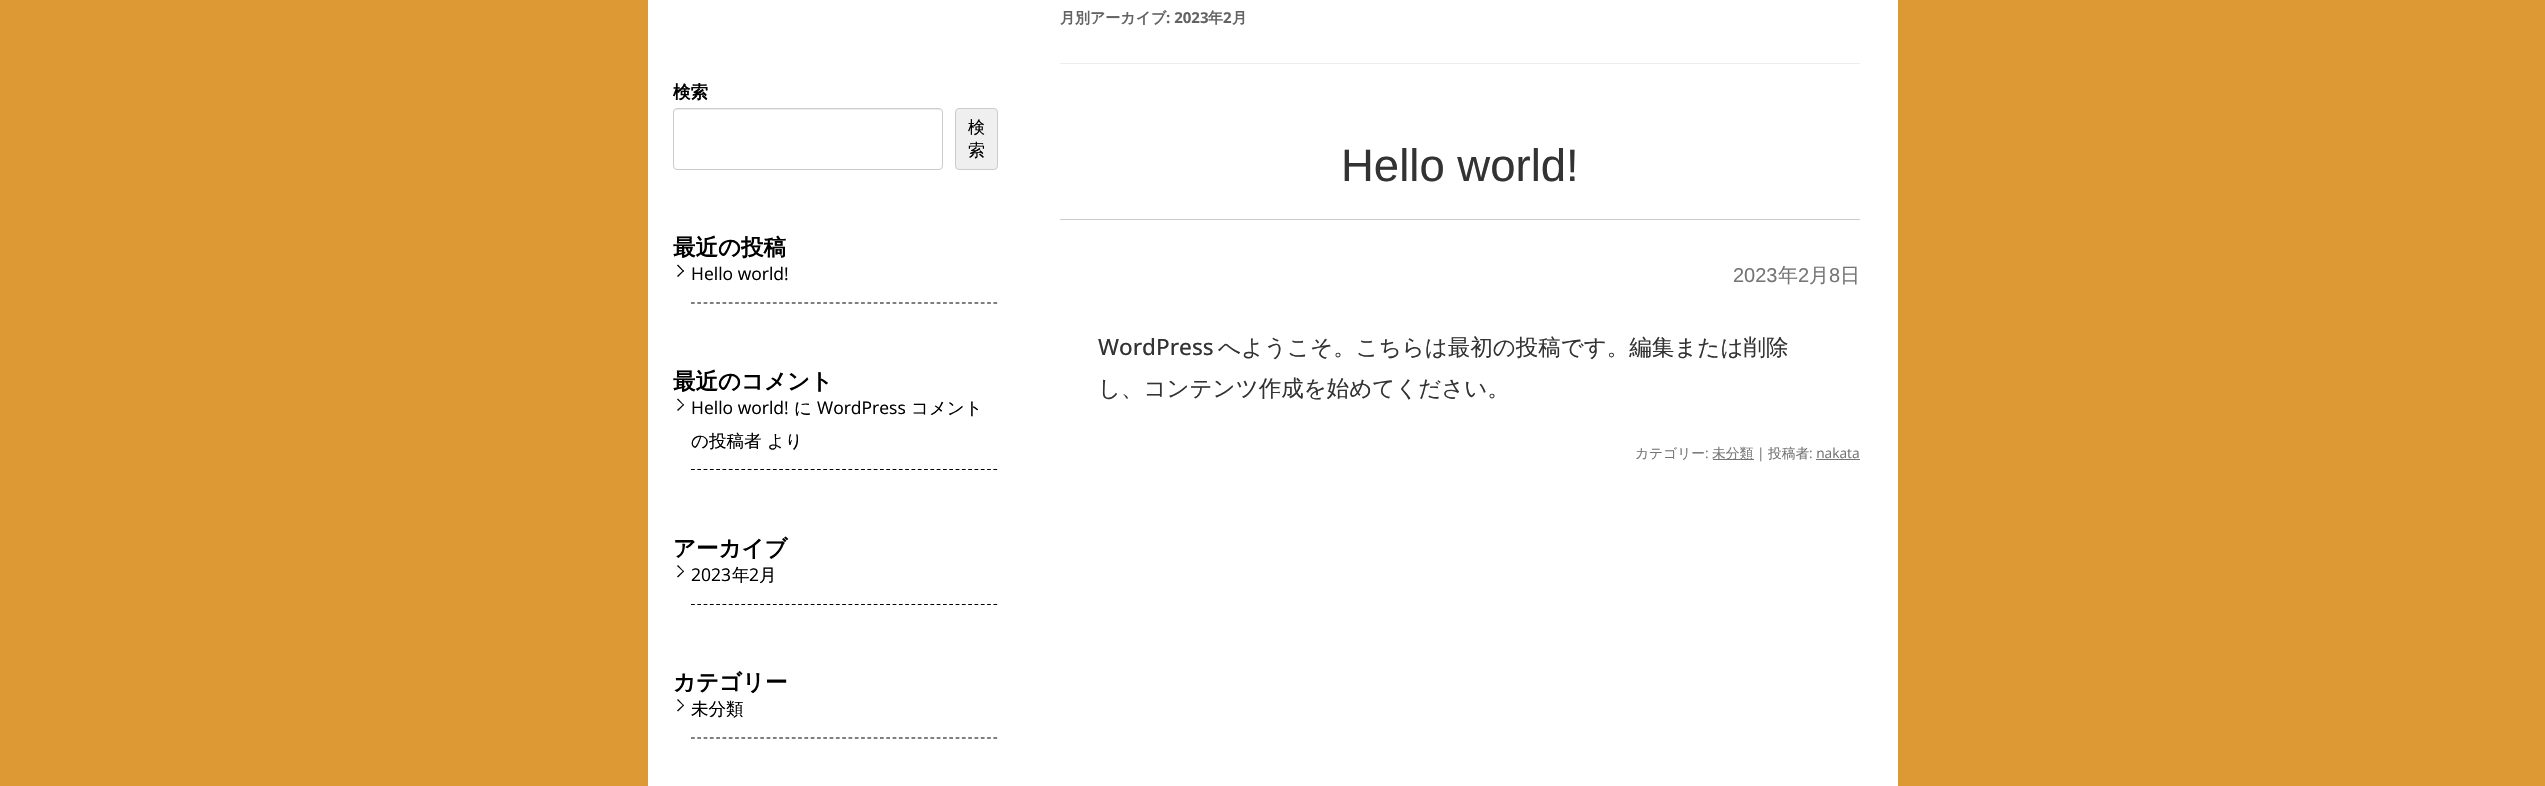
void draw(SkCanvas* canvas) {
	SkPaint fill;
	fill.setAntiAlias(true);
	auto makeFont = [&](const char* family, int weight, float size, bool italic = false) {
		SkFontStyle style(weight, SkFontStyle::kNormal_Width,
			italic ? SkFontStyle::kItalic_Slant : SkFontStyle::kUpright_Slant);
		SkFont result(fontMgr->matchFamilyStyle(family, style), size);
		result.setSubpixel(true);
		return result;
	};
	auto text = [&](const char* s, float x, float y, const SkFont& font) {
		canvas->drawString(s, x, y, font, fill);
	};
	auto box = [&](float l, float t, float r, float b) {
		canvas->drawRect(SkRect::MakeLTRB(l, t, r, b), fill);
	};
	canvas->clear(0xFFDD9933);
	fill.setColor(0xFFFFFFFF);
	box(648, 0, 1898, 786);
	fill.setColor(0xFFECECEC);
	canvas->drawPath(SkPathBuilder().moveTo(676, 110).lineTo(939, 110).cubicTo(940, 110, 941, 111, 941, 112).cubicTo(941, 110, 940, 109, 938, 109).lineTo(676, 109).cubicTo(675, 109, 674, 110, 674, 112).cubicTo(674, 111, 675, 110, 676, 110).close().detach(), fill);
	fill.setStyle(SkPaint::kStroke_Style);
	fill.setStrokeWidth(1);
	fill.setColor(0xFFCCCCCC);
	canvas->drawRoundRect(SkRect::MakeLTRB(673.5f, 108.5f, 942.5f, 169.5f), 3.5f, 3.5f, fill);
	fill.setStyle(SkPaint::kFill_Style);
	fill.setColor(0xFFEFEFEF);
	canvas->drawRoundRect(SkRect::MakeLTRB(955.5f, 108.5f, 997.5f, 169.5f), 3.5f, 3.5f, fill);
	fill.setStyle(SkPaint::kStroke_Style);
	fill.setColor(0xFFCCCCCC);
	canvas->drawRoundRect(SkRect::MakeLTRB(955.5f, 108.5f, 997.5f, 169.5f), 3.5f, 3.5f, fill);
	fill.setStrokeWidth(1.2f);
	fill.setColor(0xFF000000);
	fill.setPathEffect(SkDashPathEffect::Make({{3.75f, 2.55f}}, 0));
	canvas->drawPath(SkPathBuilder().moveTo(691, 303).lineTo(997.5f, 303).detach(), fill);
	fill.setPathEffect(nullptr);
	fill.setStyle(SkPaint::kFill_Style);
	canvas->drawPath(SkPathBuilder().moveTo(677, 265.5f).lineTo(678, 264.5f).lineTo(684, 271).lineTo(683.5f, 272).close().detach(), fill);
	canvas->drawPath(SkPathBuilder().moveTo(677, 276).lineTo(683.5f, 270).lineTo(684, 271).lineTo(678, 277).close().detach(), fill);
	fill.setStyle(SkPaint::kStroke_Style);
	fill.setPathEffect(SkDashPathEffect::Make({{3.75f, 2.55f}}, 0));
	canvas->drawPath(SkPathBuilder().moveTo(691, 469.5f).lineTo(997.5f, 469.5f).detach(), fill);
	fill.setPathEffect(nullptr);
	fill.setStyle(SkPaint::kFill_Style);
	canvas->drawPath(SkPathBuilder().moveTo(677, 399.5f).lineTo(678, 398.5f).lineTo(684, 405).lineTo(683.5f, 405.5f).close().detach(), fill);
	canvas->drawPath(SkPathBuilder().moveTo(677, 410).lineTo(683.5f, 404).lineTo(684, 405).lineTo(678, 411).close().detach(), fill);
	fill.setStyle(SkPaint::kStroke_Style);
	fill.setPathEffect(SkDashPathEffect::Make({{3.75f, 2.55f}}, 0));
	canvas->drawPath(SkPathBuilder().moveTo(691, 604.5f).lineTo(997.5f, 604.5f).detach(), fill);
	fill.setPathEffect(nullptr);
	fill.setStyle(SkPaint::kFill_Style);
	canvas->drawPath(SkPathBuilder().moveTo(677, 566).lineTo(678, 565).lineTo(684, 571.5f).lineTo(683.5f, 572).close().detach(), fill);
	canvas->drawPath(SkPathBuilder().moveTo(677, 576.5f).lineTo(683.5f, 570.5f).lineTo(684, 571.5f).lineTo(678, 577.5f).close().detach(), fill);
	fill.setStyle(SkPaint::kStroke_Style);
	fill.setPathEffect(SkDashPathEffect::Make({{3.75f, 2.55f}}, 0));
	canvas->drawPath(SkPathBuilder().moveTo(691, 738).lineTo(997.5f, 738).detach(), fill);
	fill.setPathEffect(nullptr);
	fill.setStyle(SkPaint::kFill_Style);
	canvas->drawPath(SkPathBuilder().moveTo(677, 700).lineTo(678, 699).lineTo(684, 705.5f).lineTo(683.5f, 706).close().detach(), fill);
	canvas->drawPath(SkPathBuilder().moveTo(677, 710.5f).lineTo(683.5f, 704.5f).lineTo(684, 705.5f).lineTo(678, 711.5f).close().detach(), fill);
	fill.setColor(0xFFEDEDED);
	box(1060, 63, 1860, 64);
	fill.setColor(0xFFCCCCCC);
	box(1060, 219, 1860, 220);
	fill.setColor(0xFF757575);
	box(1713, 459, 1754, 460);
	box(1816, 459, 1860, 460);
	auto font1 = makeFont("WenQuanYi Zen Hei", 700, 17.5f);
	fill.setColor(0xFF000000);
	text("検索", 673, 98, font1);
	auto font2 = makeFont("WenQuanYi Zen Hei", 500, 17);
	text("検", 968, 133, font2);
	text("索", 968, 156, font2);
	auto font3 = makeFont("WenQuanYi Zen Hei", 700, 22.5f);
	text("最近の投稿", 673, 255, font3);
	auto font4 = makeFont("Open Sans", 400, 17.5f);
	text("Hello world!", 691, 280, font4);
	text("最近のコメント", 673, 389, font3);
	text("Hello world!", 691, 414, font4);
	auto font5 = makeFont("WenQuanYi Zen Hei", 500, 17.5f);
	text("に", 794, 414, font5);
	text("WordPress", 817, 414, font4);
	text("コメント", 911, 414, font5);
	text("の投稿者", 691, 447, font5);
	text("より", 767, 447, font5);
	text("アーカイブ", 673, 556, font3);
	text("2023", 691, 581, font4);
	text("年", 732, 581, font5);
	text("2", 749, 581, font4);
	text("月", 759, 581, font5);
	text("カテゴリー", 673, 690, font3);
	text("未分類", 691, 715, font5);
	auto font6 = makeFont("WenQuanYi Zen Hei", 700, 15);
	fill.setColor(0xFF636363);
	text("月別アーカイブ", 1060, 23, font6);
	auto font7 = makeFont("Open Sans", 700, 15);
	text(": 2023", 1166, 23, font7);
	text("年", 1208, 23, font6);
	text("2", 1223, 23, font7);
	text("月", 1232, 23, font6);
	auto font8 = makeFont("Liberation Sans", 400, 45.5f);
	fill.setColor(0xFF333333);
	text("Hello world!", 1341, 181, font8);
	auto font9 = makeFont("Liberation Sans", 400, 20);
	fill.setColor(0xFF757575);
	text("2023", 1733, 282, font9);
	auto font10 = makeFont("WenQuanYi Zen Hei", 500, 20);
	text("年", 1778, 282, font10);
	text("2", 1798, 282, font9);
	text("月", 1809, 282, font10);
	text("8", 1829, 282, font9);
	text("日", 1840, 282, font10);
	auto font11 = makeFont("Open Sans", 500, 22.5f);
	fill.setColor(0xFF333333);
	text("WordPress", 1098, 355, font11);
	auto font12 = makeFont("WenQuanYi Zen Hei", 500, 22.5f);
	text("へようこそ。こちらは最初の投稿です。編集または削除", 1218, 355, font12);
	text("し、コンテンツ作成を始めてください。", 1098, 396, font12);
	auto font13 = makeFont("WenQuanYi Zen Hei", 500, 13.75f);
	fill.setColor(0xFF757575);
	text("カテゴリー", 1635, 458, font13);
	auto font14 = makeFont("Open Sans", 400, 13.75f);
	text(":", 1705, 458, font14);
	text("未分類", 1712, 458, font13);
	text("|", 1757, 458, font14);
	text("投稿者", 1768, 458, font13);
	text(": nakata", 1809, 458, font14);
}
